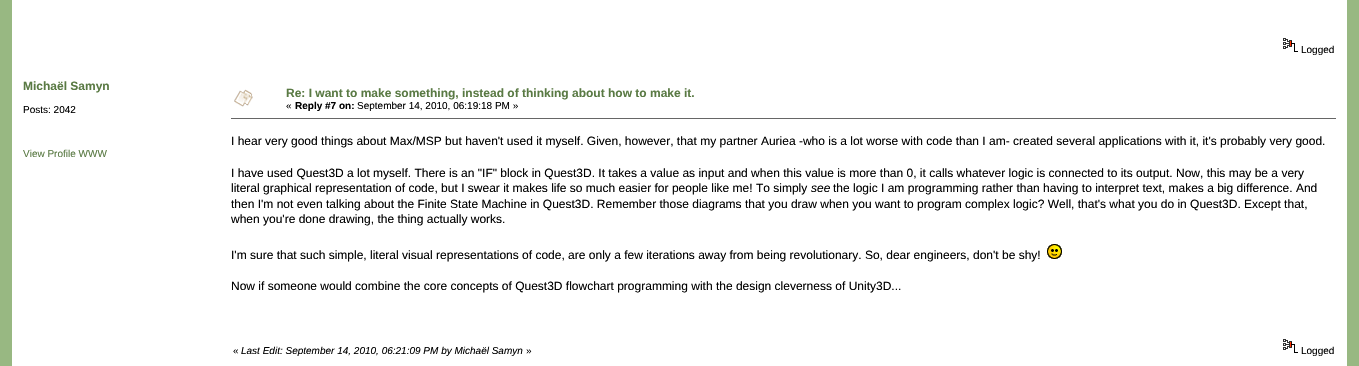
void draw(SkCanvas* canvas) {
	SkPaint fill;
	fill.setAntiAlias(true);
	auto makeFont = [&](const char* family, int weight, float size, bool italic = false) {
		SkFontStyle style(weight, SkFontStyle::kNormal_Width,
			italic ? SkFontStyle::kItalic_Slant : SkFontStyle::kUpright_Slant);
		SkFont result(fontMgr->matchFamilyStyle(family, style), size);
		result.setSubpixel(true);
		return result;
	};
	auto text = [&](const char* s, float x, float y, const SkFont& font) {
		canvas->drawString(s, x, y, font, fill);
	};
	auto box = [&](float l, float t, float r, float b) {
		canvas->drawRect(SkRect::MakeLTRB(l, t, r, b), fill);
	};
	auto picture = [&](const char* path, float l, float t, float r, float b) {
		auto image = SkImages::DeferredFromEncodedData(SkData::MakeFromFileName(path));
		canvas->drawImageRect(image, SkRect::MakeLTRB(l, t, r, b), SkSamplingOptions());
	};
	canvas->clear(0xFF98B882);
	fill.setColor(0xFFFFFFFF);
	box(12, 0, 1347, 366);
	picture("image0.png", 1283, 38, 1298, 52);
	picture("image1.png", 234, 89, 253, 107);
	fill.setColor(0xFF666666);
	box(231, 118, 1336, 119);
	picture("image2.png", 1047, 244, 1062, 259);
	picture("image0.png", 1283, 339, 1298, 353);
	auto font1 = makeFont("Liberation Sans", 400, 10);
	fill.setColor(0xFF000000);
	text("Logged", 1301, 53, font1);
	auto font2 = makeFont("Liberation Sans", 700, 12);
	fill.setColor(0xFF5A7A44);
	text("Michaël Samyn", 23, 90, font2);
	fill.setColor(0xFF000000);
	text("Posts: 2042", 23, 113, font1);
	fill.setColor(0xFF5A7A44);
	text("View Profile WWW", 23, 157, font1);
	text("Re: I want to make something, instead of thinking about how to make it.", 286, 97, font2);
	fill.setColor(0xFF000000);
	text("«", 286, 109, font1);
	auto font3 = makeFont("Liberation Sans", 700, 10);
	text("Reply #7 on:", 295, 109, font3);
	text("September 14, 2010, 06:19:18 PM »", 357, 109, font1);
	auto font4 = makeFont("Liberation Sans", 400, 12);
	text("I hear very good things about Max/MSP but haven't used it myself. Given, however, that my partner Auriea -who is a lot worse with code than I am- created several applications with it, it's probably very good.", 231, 145, font4);
	text("I have used Quest3D a lot myself. There is an \"IF\" block in Quest3D. It takes a value as input and when this value is more than 0, it calls whatever logic is connected to its output. Now, this may be a very", 231, 177, font4);
	text("literal graphical representation of code, but I swear it makes life so much easier for people like me! To simply", 231, 192, font4);
	auto font5 = makeFont("Liberation Sans", 400, 12, true);
	text("see", 811, 192, font5);
	text("the logic I am programming rather than having to interpret text, makes a big difference. And", 833, 192, font4);
	text("then I'm not even talking about the Finite State Machine in Quest3D. Remember those diagrams that you draw when you want to program complex logic? Well, that's what you do in Quest3D. Except that,", 231, 208, font4);
	text("when you're done drawing, the thing actually works.", 231, 223, font4);
	text("I'm sure that such simple, literal visual representations of code, are only a few iterations away from being revolutionary. So, dear engineers, don't be shy!", 231, 259, font4);
	text("Now if someone would combine the core concepts of Quest3D flowchart programming with the design cleverness of Unity3D...", 231, 290, font4);
	text("«", 233, 354, font1);
	auto font6 = makeFont("Liberation Sans", 400, 10, true);
	text("Last Edit: September 14, 2010, 06:21:09 PM by Michaël Samyn", 241, 354, font6);
	text("»", 526, 354, font1);
	text("Logged", 1301, 354, font1);
}
